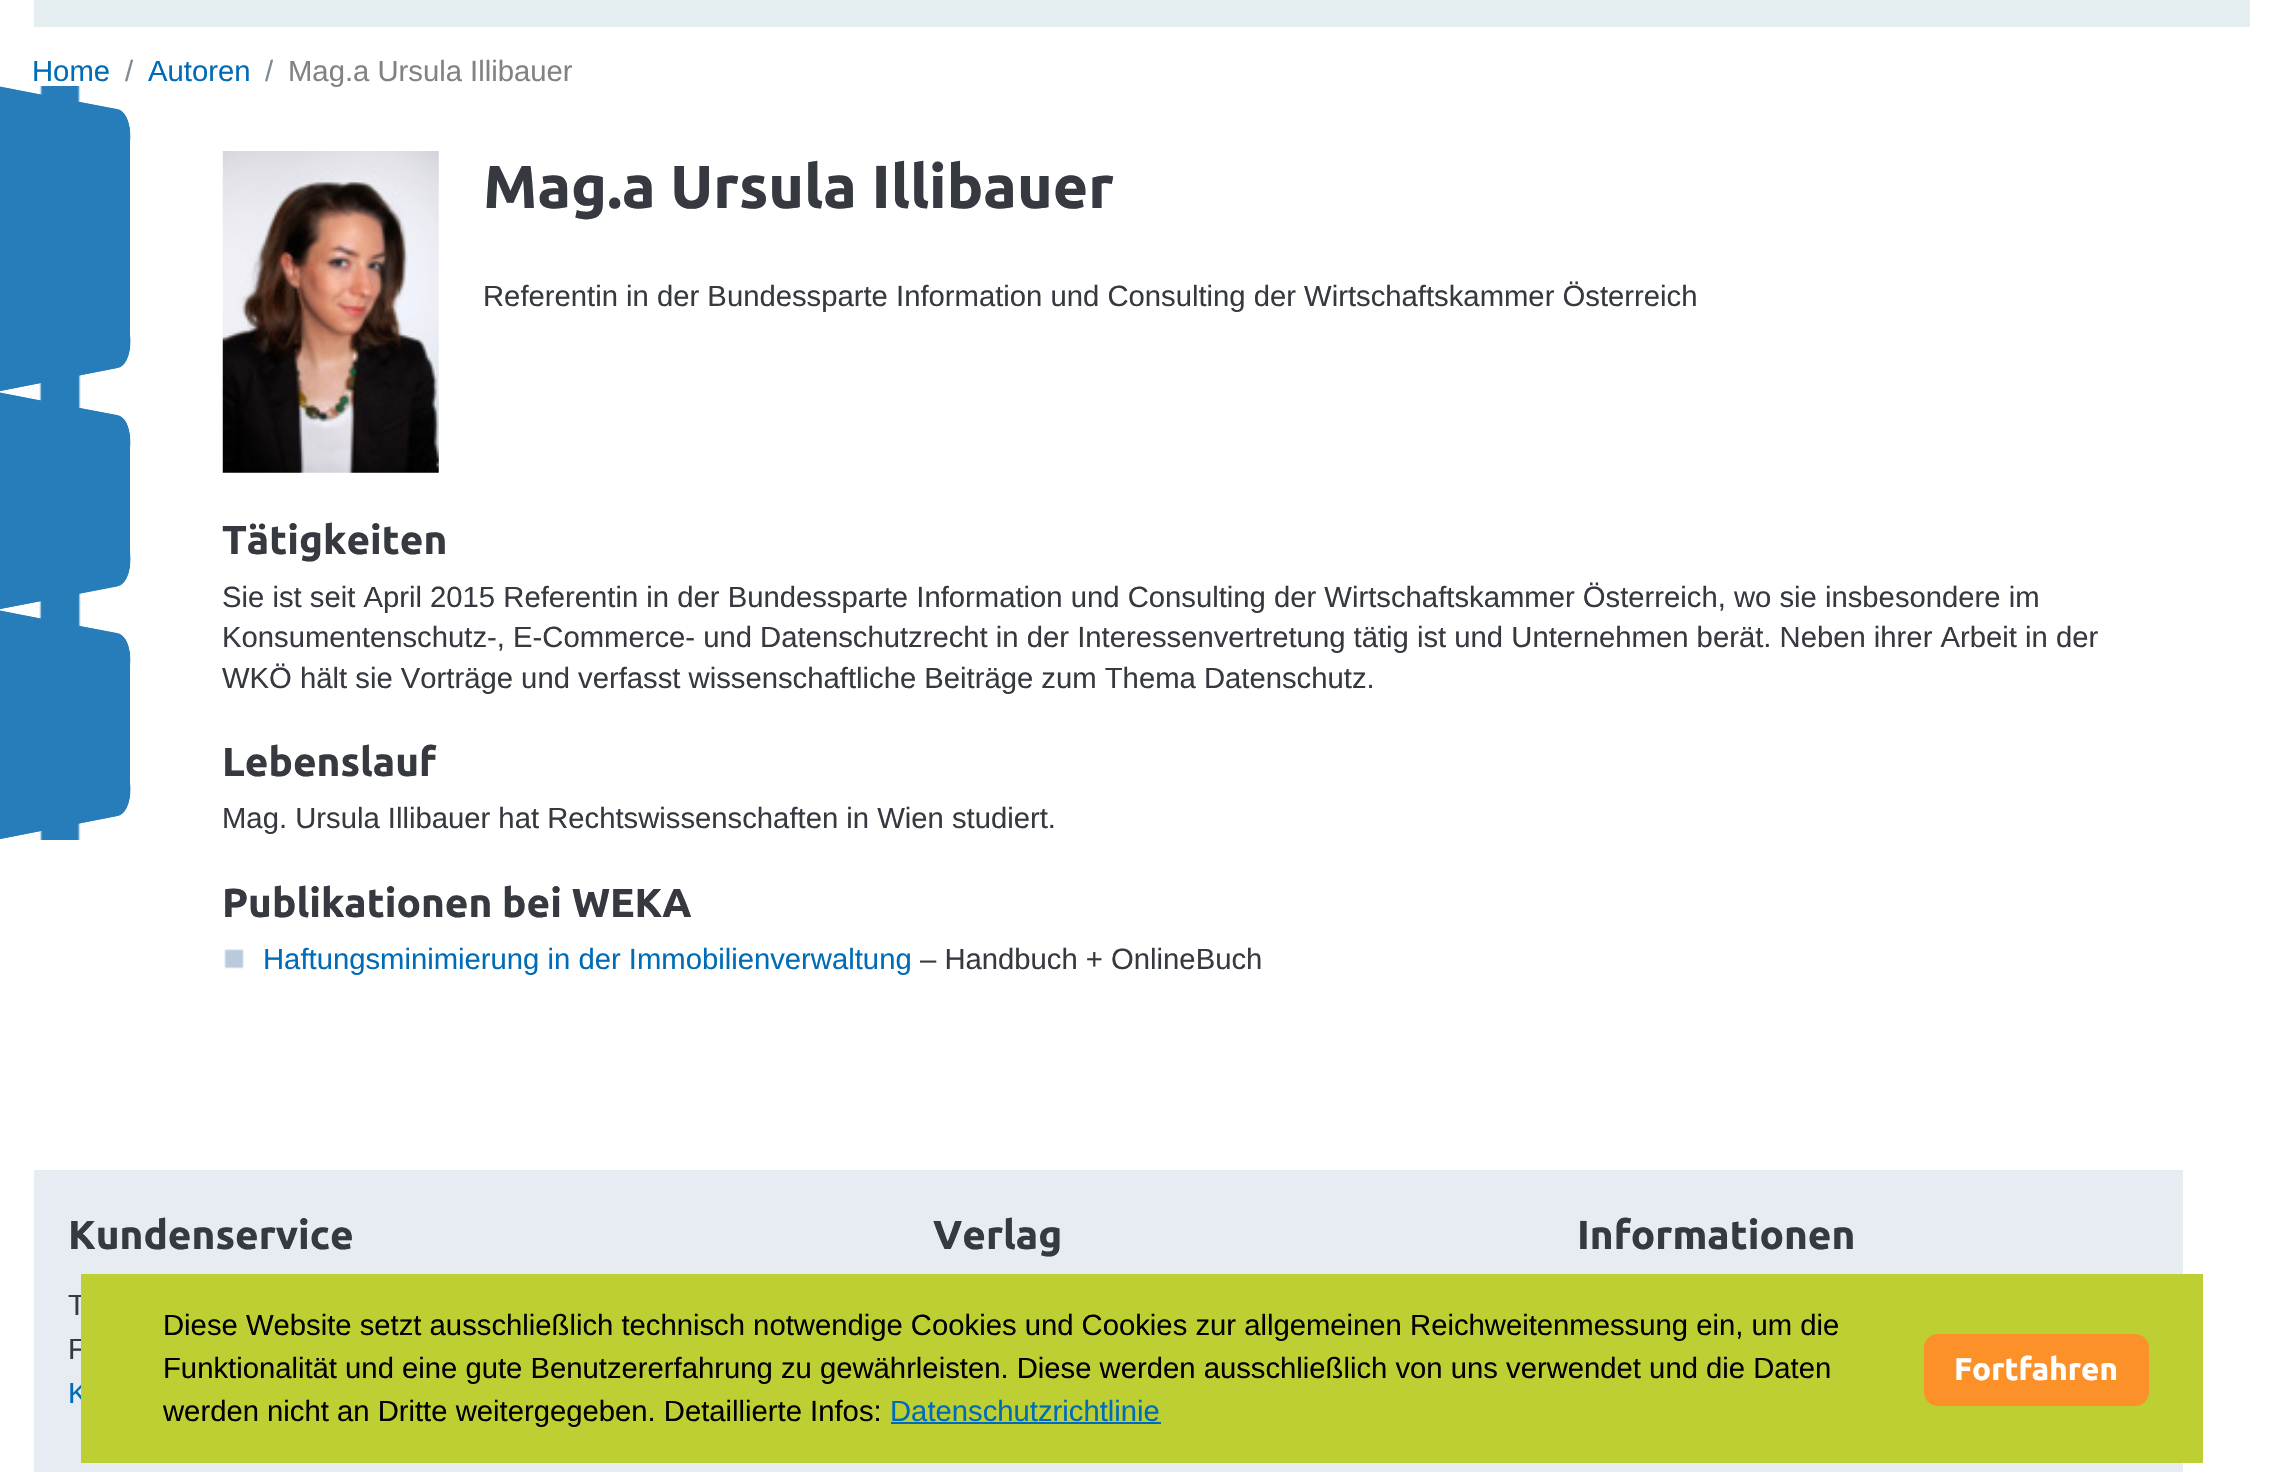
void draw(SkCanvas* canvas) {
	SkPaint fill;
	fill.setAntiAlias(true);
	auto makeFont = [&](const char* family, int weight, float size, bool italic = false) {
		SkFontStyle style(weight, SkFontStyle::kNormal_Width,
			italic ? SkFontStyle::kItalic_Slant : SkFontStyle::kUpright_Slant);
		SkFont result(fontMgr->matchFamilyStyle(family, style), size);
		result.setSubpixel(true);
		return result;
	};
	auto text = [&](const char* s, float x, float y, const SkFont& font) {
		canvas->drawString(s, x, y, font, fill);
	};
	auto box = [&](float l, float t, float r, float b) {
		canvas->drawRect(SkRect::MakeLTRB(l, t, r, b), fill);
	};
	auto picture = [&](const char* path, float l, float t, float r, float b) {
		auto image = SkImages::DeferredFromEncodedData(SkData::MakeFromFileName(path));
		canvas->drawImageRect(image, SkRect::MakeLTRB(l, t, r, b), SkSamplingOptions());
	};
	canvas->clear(0xFFFFFFFF);
	fill.setColor(0xFFE4EDF0);
	box(34, 0, 2250, 27);
	fill.setColor(0xFF277DB9);
	canvas->drawPath(SkPathBuilder().moveTo(130, 132).lineTo(130, 346).cubicTo(130, 354, 124, 360, 116, 360).lineTo(0, 360).lineTo(0, 117).lineTo(116, 117).cubicTo(124, 117, 130, 124, 130, 132).close().detach(), fill);
	canvas->save();
	canvas->clipPath(SkPathBuilder().moveTo(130.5f, 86).lineTo(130.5f, 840).lineTo(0, 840).lineTo(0, 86).close().detach(), true);
	fill.setMaskFilter(SkMaskFilter::MakeBlur(kNormal_SkBlurStyle, 1));
	canvas->drawRoundRect(SkRect::MakeLTRB(41, 43, 79, 191), 19, 19, fill);
	fill.setMaskFilter(nullptr);
	canvas->restore();
	canvas->drawPath(SkPathBuilder().moveTo(129, 151).cubicTo(133, 130, 128, 111, 117, 109).lineTo(0, 87).lineTo(0, 125).close().detach(), fill);
	fill.setStyle(SkPaint::kStroke_Style);
	fill.setStrokeWidth(2.2f);
	canvas->drawPath(SkPathBuilder().moveTo(127.5f, 150.5f).lineTo(128, 149).lineTo(-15, 121.5f).lineTo(-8.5f, 86).lineTo(117, 110.5f).cubicTo(127, 112.5f, 131.5f, 130, 127.5f, 150.5f).close().detach(), fill);
	fill.setStyle(SkPaint::kFill_Style);
	fill.setMaskFilter(SkMaskFilter::MakeBlur(kNormal_SkBlurStyle, 1));
	canvas->drawRoundRect(SkRect::MakeLTRB(41, 286, 79, 434), 19, 19, fill);
	fill.setMaskFilter(nullptr);
	canvas->drawPath(SkPathBuilder().moveTo(129, 327).cubicTo(133, 348, 128, 366, 117, 368).lineTo(0, 391).lineTo(0, 352).close().detach(), fill);
	fill.setStyle(SkPaint::kStroke_Style);
	canvas->drawPath(SkPathBuilder().moveTo(128, 328.5f).lineTo(127.5f, 327.5f).cubicTo(131.5f, 347.5f, 127, 365.5f, 117, 367).lineTo(-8.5f, 391.5f).lineTo(-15, 356.5f).close().detach(), fill);
	fill.setStyle(SkPaint::kFill_Style);
	canvas->drawPath(SkPathBuilder().moveTo(130, 438).lineTo(130, 564).cubicTo(130, 572, 124, 578, 116, 578).lineTo(0, 578).lineTo(0, 423).lineTo(116, 423).cubicTo(124, 423, 130, 430, 130, 438).close().detach(), fill);
	fill.setMaskFilter(SkMaskFilter::MakeBlur(kNormal_SkBlurStyle, 1));
	canvas->drawRoundRect(SkRect::MakeLTRB(41, 349, 79, 497), 19, 19, fill);
	fill.setMaskFilter(nullptr);
	canvas->drawPath(SkPathBuilder().moveTo(129, 456).lineTo(0, 431).lineTo(0, 393).lineTo(117, 415).cubicTo(128, 417, 133, 436, 129, 456).close().detach(), fill);
	fill.setStyle(SkPaint::kStroke_Style);
	canvas->drawPath(SkPathBuilder().moveTo(127.5f, 456).lineTo(128, 455).lineTo(-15, 427).lineTo(-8.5f, 392).lineTo(117, 416.5f).cubicTo(127, 418, 131.5f, 436, 127.5f, 456).close().detach(), fill);
	fill.setStyle(SkPaint::kFill_Style);
	fill.setMaskFilter(SkMaskFilter::MakeBlur(kNormal_SkBlurStyle, 1));
	canvas->drawRoundRect(SkRect::MakeLTRB(41, 504, 79, 653), 19, 19, fill);
	fill.setMaskFilter(nullptr);
	canvas->drawPath(SkPathBuilder().moveTo(129, 545).cubicTo(133, 566, 128, 584, 117, 586).lineTo(0, 609).lineTo(0, 571).close().detach(), fill);
	fill.setStyle(SkPaint::kStroke_Style);
	canvas->drawPath(SkPathBuilder().moveTo(128, 546.5f).lineTo(127.5f, 545.5f).cubicTo(131.5f, 565.5f, 127, 583.5f, 117, 585.5f).lineTo(-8.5f, 609.5f).lineTo(-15, 574.5f).close().detach(), fill);
	fill.setStyle(SkPaint::kFill_Style);
	canvas->drawPath(SkPathBuilder().moveTo(130, 656).lineTo(130, 794).cubicTo(130, 802, 124, 808, 116, 808).lineTo(0, 808).lineTo(0, 641).lineTo(116, 641).cubicTo(124, 641, 130, 648, 130, 656).close().detach(), fill);
	fill.setMaskFilter(SkMaskFilter::MakeBlur(kNormal_SkBlurStyle, 1));
	canvas->drawRoundRect(SkRect::MakeLTRB(41, 567, 79, 716), 19, 19, fill);
	fill.setMaskFilter(nullptr);
	canvas->drawPath(SkPathBuilder().moveTo(129, 674).lineTo(0, 649).lineTo(0, 611).lineTo(117, 633).cubicTo(128, 635, 133, 654, 129, 674).close().detach(), fill);
	fill.setStyle(SkPaint::kStroke_Style);
	canvas->drawPath(SkPathBuilder().moveTo(127.5f, 674).lineTo(128, 673).lineTo(-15, 645.5f).lineTo(-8.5f, 610).lineTo(117, 634.5f).cubicTo(127, 636.5f, 131.5f, 654, 127.5f, 674).close().detach(), fill);
	canvas->save();
	canvas->clipPath(SkPathBuilder().moveTo(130.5f, 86).lineTo(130.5f, 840).lineTo(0, 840).lineTo(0, 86).close().detach(), true);
	fill.setStyle(SkPaint::kFill_Style);
	fill.setMaskFilter(SkMaskFilter::MakeBlur(kNormal_SkBlurStyle, 1));
	canvas->drawRoundRect(SkRect::MakeLTRB(41, 734, 79, 882), 19, 19, fill);
	fill.setMaskFilter(nullptr);
	canvas->restore();
	canvas->drawPath(SkPathBuilder().moveTo(129, 775).cubicTo(133, 796, 128, 814, 117, 816).lineTo(0, 839).lineTo(0, 800).close().detach(), fill);
	fill.setStyle(SkPaint::kStroke_Style);
	canvas->drawPath(SkPathBuilder().moveTo(128, 776.5f).lineTo(127.5f, 775.5f).cubicTo(131.5f, 795.5f, 127, 813, 117, 815).lineTo(-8.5f, 839.5f).lineTo(-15, 804).close().detach(), fill);
	picture("image0.png", 222, 151, 439, 473);
	picture("image1.png", 224, 949, 244, 969);
	fill.setStyle(SkPaint::kFill_Style);
	fill.setColor(0xFFE7ECF3);
	box(34, 1170, 2183, 1472);
	auto font1 = makeFont("Liberation Sans", 400, 29.25f);
	fill.setColor(0xFF006BB6);
	text("Home", 32, 81, font1);
	fill.setColor(0xFF818A91);
	text("/", 125, 81, font1);
	fill.setColor(0xFF006BB6);
	text("Autoren", 148, 81, font1);
	fill.setColor(0xFF818A91);
	text("/", 265, 81, font1);
	fill.setColor(0xFF828282);
	text("Mag.a Ursula Illibauer", 288, 81, font1);
	auto font2 = makeFont("Ubuntu", 700, 60.75f);
	fill.setColor(0xFF363A40);
	text("Mag.a Ursula Illibauer", 483, 208, font2);
	text("Referentin in der Bundessparte Information und Consulting der Wirtschaftskammer Österreich", 483, 306, font1);
	auto font3 = makeFont("Ubuntu", 700, 40.5f);
	text("Tätigkeiten", 222, 554, font3);
	text("Sie ist seit April 2015 Referentin in der Bundessparte Information und Consulting der Wirtschaftskammer Österreich, wo sie insbesondere im", 222, 607, font1);
	text("Konsumentenschutz-, E-Commerce- und Datenschutzrecht in der Interessenvertretung tätig ist und Unternehmen berät. Neben ihrer Arbeit in der", 222, 647, font1);
	text("WKÖ hält sie Vorträge und verfasst wissenschaftliche Beiträge zum Thema Datenschutz.", 222, 688, font1);
	text("Lebenslauf", 222, 776, font3);
	text("Mag. Ursula Illibauer hat Rechtswissenschaften in Wien studiert.", 222, 828, font1);
	text("Publikationen bei WEKA", 222, 917, font3);
	fill.setColor(0xFF006BB6);
	text("Haftungsminimierung in der Immobilienverwaltung", 263, 969, font1);
	fill.setColor(0xFF363A40);
	text("– Handbuch + OnlineBuch", 920, 969, font1);
	text("Kundenservice", 68, 1249, font3);
	text("T", 68, 1315, font1);
	text("F", 68, 1359, font1);
	fill.setColor(0xFF006BB6);
	text("K", 68, 1403, font1);
	fill.setColor(0xFF363A40);
	text("Verlag", 933, 1249, font3);
	text("Informationen", 1577, 1249, font3);
	fill.setColor(0xFFBECF33);
	box(81, 1274, 2203, 1463);
	fill.setColor(0xFF000000);
	text("Diese Website setzt ausschließlich technisch notwendige Cookies und Cookies zur allgemeinen Reichweitenmessung ein, um die", 163, 1335, font1);
	text("Funktionalität und eine gute Benutzererfahrung zu gewährleisten. Diese werden ausschließlich von uns verwendet und die Daten", 163, 1378, font1);
	text("werden nicht an Dritte weitergegeben. Detaillierte Infos:", 163, 1421, font1);
	fill.setColor(0xFF006BB6);
	text("Datenschutzrichtlinie", 890, 1421, font1);
	box(891, 1422, 1161, 1424);
	fill.setColor(0xFFFC912A);
	canvas->drawRoundRect(SkRect::MakeLTRB(1925, 1335, 2148, 1405), 13, 13, fill);
	fill.setStyle(SkPaint::kStroke_Style);
	fill.setStrokeWidth(2);
	canvas->drawRoundRect(SkRect::MakeLTRB(1925, 1335, 2148, 1405), 13, 13, fill);
	auto font4 = makeFont("Ubuntu", 700, 31.5f);
	fill.setStyle(SkPaint::kFill_Style);
	fill.setColor(0xFFFFFFFF);
	text("Fortfahren", 1954, 1380, font4);
}
